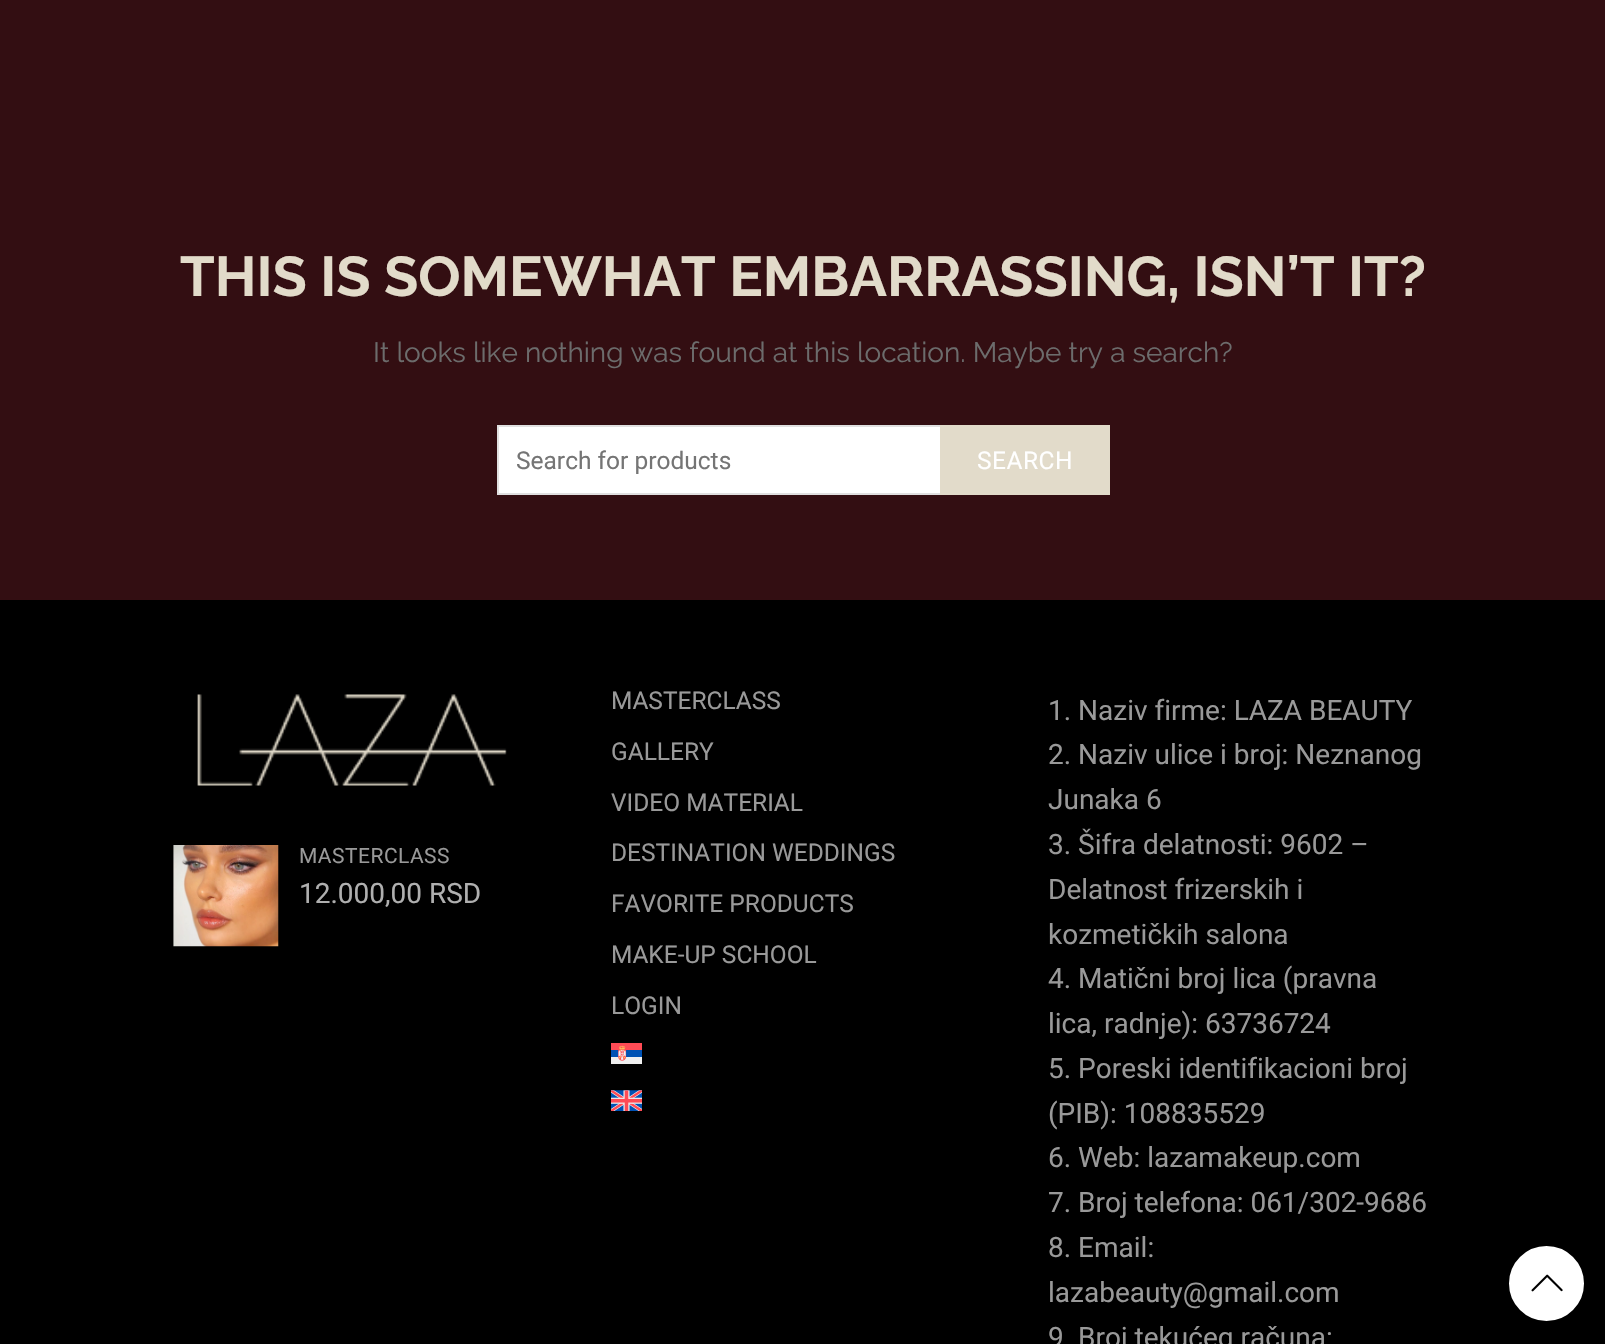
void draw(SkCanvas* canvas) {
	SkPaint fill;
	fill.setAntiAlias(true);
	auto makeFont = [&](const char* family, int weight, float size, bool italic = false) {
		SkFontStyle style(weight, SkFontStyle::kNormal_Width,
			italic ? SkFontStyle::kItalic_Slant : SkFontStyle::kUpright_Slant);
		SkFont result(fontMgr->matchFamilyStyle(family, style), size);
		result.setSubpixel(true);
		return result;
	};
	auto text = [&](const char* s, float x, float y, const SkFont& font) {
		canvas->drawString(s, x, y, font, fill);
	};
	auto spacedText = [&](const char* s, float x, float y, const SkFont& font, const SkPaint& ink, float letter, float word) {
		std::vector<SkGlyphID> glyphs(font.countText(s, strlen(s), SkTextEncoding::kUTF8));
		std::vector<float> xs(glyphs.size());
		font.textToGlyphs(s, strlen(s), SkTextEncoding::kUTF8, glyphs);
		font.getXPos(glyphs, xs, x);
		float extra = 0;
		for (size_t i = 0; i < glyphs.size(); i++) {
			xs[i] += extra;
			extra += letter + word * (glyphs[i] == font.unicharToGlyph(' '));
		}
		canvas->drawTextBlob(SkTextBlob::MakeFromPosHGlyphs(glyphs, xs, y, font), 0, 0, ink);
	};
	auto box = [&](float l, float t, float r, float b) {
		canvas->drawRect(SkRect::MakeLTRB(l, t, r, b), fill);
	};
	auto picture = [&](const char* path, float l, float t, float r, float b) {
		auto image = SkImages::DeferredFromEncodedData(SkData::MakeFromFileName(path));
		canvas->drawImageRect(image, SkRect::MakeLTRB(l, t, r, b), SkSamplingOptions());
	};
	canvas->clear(0xFF330E12);
	fill.setColor(0xFFFFFFFF);
	box(499, 427, 940, 493);
	fill.setStyle(SkPaint::kStroke_Style);
	fill.setStrokeWidth(2);
	fill.setColor(0xFFE0E0E0);
	canvas->drawRect(SkRect::MakeLTRB(498, 426, 1109, 494), fill);
	fill.setStyle(SkPaint::kFill_Style);
	fill.setColor(0xFFE2DBCA);
	box(940, 425, 1110, 495);
	fill.setColor(0xFF000000);
	box(0, 600, 1605, 1344);
	picture("image0.png", 197, 694, 507, 786);
	picture("image1.png", 173, 845, 279, 947);
	picture("image2.png", 611, 1043, 642, 1064);
	picture("image3.png", 611, 1090, 642, 1111);
	fill.setColor(0xFFFFFFFF);
	canvas->drawCircle(1546.5f, 1283.5f, 38.5f, fill);
	fill.setStyle(SkPaint::kStroke_Style);
	fill.setColor(0xFF000000);
	canvas->drawCircle(1546.5f, 1283.5f, 38.5f, fill);
	picture("image4.png", 1531, 1274, 1563, 1292);
	auto font1 = makeFont("Raleway", 700, 56);
	fill.setStyle(SkPaint::kFill_Style);
	fill.setColor(0xFFE2DBCA);
	text("THIS IS SOMEWHAT EMBARRASSING, ISN’T IT?", 180, 296, font1);
	auto font2 = makeFont("Raleway", 400, 28);
	fill.setColor(0xFF6C6C6C);
	text("It looks like nothing was found at this location. Maybe try a search?", 373, 362, font2);
	auto font3 = makeFont("Roboto", 400, 24.5f);
	fill.setColor(0xFF757575);
	text("Search for products", 516, 469, font3);
	fill.setColor(0xFFFFFFFF);
	spacedText("SEARCH", 977, 469, font3, fill, 0.5f, 0);
	auto font4 = makeFont("Roboto", 400, 21);
	fill.setColor(0xFF999999);
	spacedText("MASTERCLASS", 299, 863, font4, fill, 0.5f, 0);
	auto font5 = makeFont("Roboto", 400, 28);
	fill.setColor(0xFFAFAFAF);
	text("12.000,00 RSD", 299, 903, font5);
	fill.setColor(0xFF999999);
	text("MASTERCLASS", 611, 709, font3);
	text("GALLERY", 611, 760, font3);
	text("VIDEO MATERIAL", 611, 811, font3);
	text("DESTINATION WEDDINGS", 611, 861, font3);
	text("FAVORITE PRODUCTS", 611, 912, font3);
	text("MAKE-UP SCHOOL", 611, 963, font3);
	text("LOGIN", 611, 1014, font3);
	text("1. Naziv firme: LAZA BEAUTY", 1048, 720, font5);
	text("2. Naziv ulice i broj: Neznanog", 1048, 764, font5);
	text("Junaka 6", 1048, 809, font5);
	text("3. Šifra delatnosti: 9602 –", 1048, 854, font5);
	text("Delatnost frizerskih i", 1048, 899, font5);
	text("kozmetičkih salona", 1048, 944, font5);
	text("4. Matični broj lica (pravna", 1048, 988, font5);
	text("lica, radnje): 63736724", 1048, 1033, font5);
	text("5. Poreski identifikacioni broj", 1048, 1078, font5);
	text("(PIB): 108835529", 1048, 1123, font5);
	text("6. Web: lazamakeup.com", 1048, 1167, font5);
	text("7. Broj telefona: 061/302-9686", 1048, 1212, font5);
	text("8. Email:", 1048, 1257, font5);
	text("lazabeauty@gmail.com", 1048, 1302, font5);
	text("9. Broj tekućeg računa:", 1048, 1347, font5);
}
